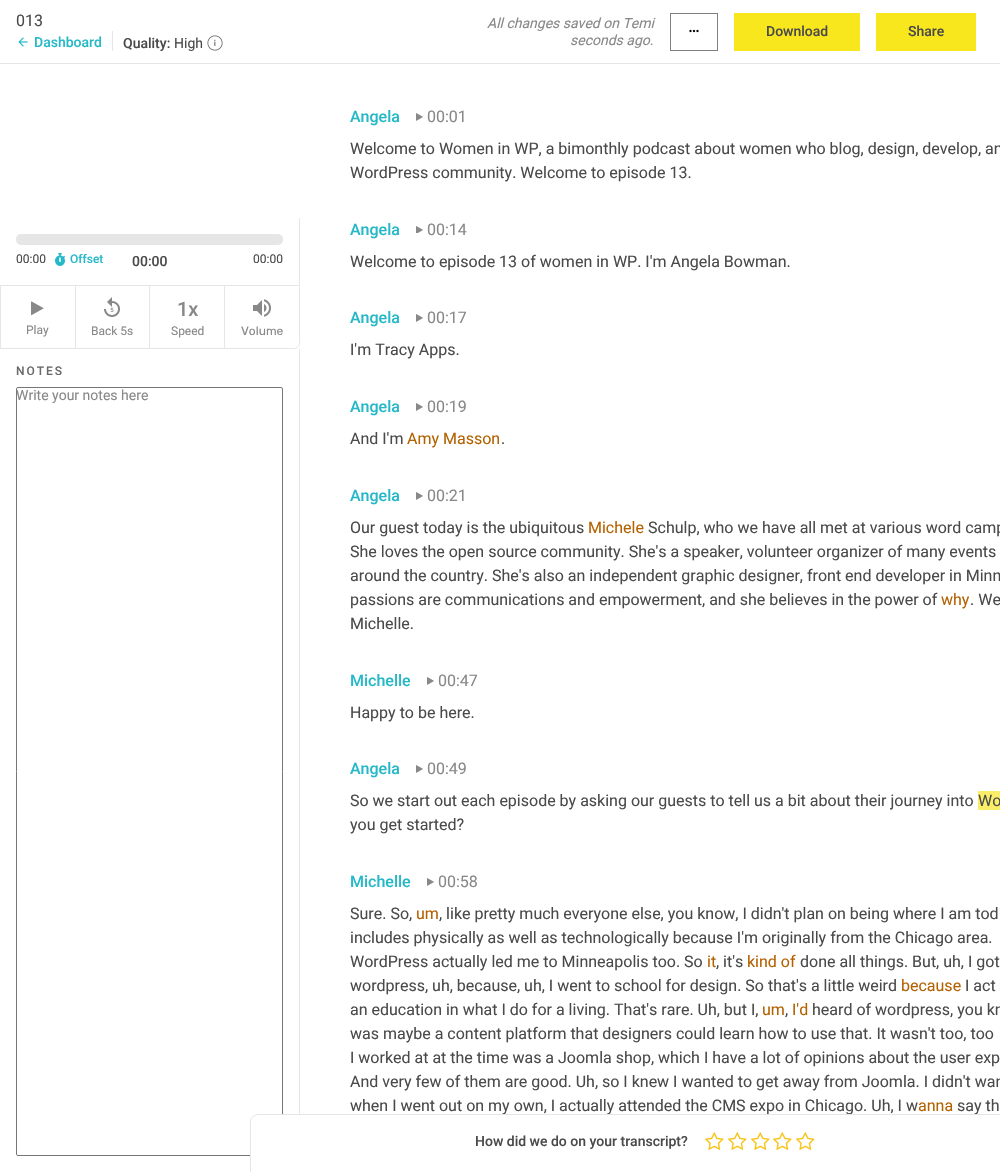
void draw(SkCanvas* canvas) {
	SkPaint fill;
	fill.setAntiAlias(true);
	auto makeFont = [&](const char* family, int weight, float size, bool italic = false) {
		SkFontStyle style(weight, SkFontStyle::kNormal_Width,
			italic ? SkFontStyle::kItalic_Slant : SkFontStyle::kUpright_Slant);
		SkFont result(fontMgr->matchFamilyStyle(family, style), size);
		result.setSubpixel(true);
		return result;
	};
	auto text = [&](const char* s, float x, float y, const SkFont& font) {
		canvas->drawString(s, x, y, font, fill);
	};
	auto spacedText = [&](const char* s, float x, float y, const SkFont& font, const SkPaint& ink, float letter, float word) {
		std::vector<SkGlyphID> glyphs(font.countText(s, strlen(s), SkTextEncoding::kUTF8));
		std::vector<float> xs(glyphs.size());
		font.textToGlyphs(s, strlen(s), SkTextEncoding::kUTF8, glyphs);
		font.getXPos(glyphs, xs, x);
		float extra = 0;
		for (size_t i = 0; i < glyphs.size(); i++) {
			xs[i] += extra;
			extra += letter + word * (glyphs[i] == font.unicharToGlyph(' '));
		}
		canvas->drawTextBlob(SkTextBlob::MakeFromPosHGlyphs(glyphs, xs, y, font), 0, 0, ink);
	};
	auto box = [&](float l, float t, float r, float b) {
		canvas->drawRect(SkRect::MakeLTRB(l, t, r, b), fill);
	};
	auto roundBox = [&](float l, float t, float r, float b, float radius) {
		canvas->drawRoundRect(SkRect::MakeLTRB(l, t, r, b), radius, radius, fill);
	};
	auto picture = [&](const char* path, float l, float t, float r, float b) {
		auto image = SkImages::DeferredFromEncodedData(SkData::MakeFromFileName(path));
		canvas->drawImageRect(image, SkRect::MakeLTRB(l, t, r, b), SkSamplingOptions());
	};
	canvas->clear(0xFFFFFFFF);
	fill.setColor(0xFFE6E6E6);
	box(0, 63, 1000, 64);
	picture("image0.png", 18, 37, 28, 47);
	box(112, 31, 113, 51);
	picture("image1.png", 207, 35, 223, 51);
	fill.setStyle(SkPaint::kStroke_Style);
	fill.setStrokeWidth(1);
	fill.setColor(0xFF808080);
	canvas->drawRect(SkRect::MakeLTRB(670.5f, 13.5f, 717.5f, 50.5f), fill);
	picture("image2.png", 689, 29, 699, 33);
	fill.setStyle(SkPaint::kFill_Style);
	fill.setColor(0xFFF8E71C);
	box(734, 13, 860, 51);
	box(876, 13, 976, 51);
	fill.setColor(0xFFE6E6E6);
	box(299, 218, 300, 285);
	roundBox(16, 234, 283, 245, 5);
	picture("image3.png", 55, 253, 65, 266);
	fill.setStyle(SkPaint::kStroke_Style);
	canvas->drawRect(SkRect::MakeLTRB(0.5f, 285.5f, 75.5f, 348.5f), fill);
	picture("image4.png", 31, 301, 44, 316);
	fill.setStyle(SkPaint::kFill_Style);
	box(76, 285, 225, 286);
	box(149, 285, 150, 349);
	box(76, 348, 150, 349);
	picture("image5.png", 104, 297, 120, 317);
	box(224, 285, 225, 349);
	box(150, 348, 225, 349);
	canvas->drawPath(SkPathBuilder(SkPathFillType::kEvenOdd).moveTo(225, 285).lineTo(300, 285).lineTo(300, 343).cubicTo(300, 346, 297, 349, 294, 349).lineTo(225, 349).close().moveTo(225, 286).lineTo(299, 286).lineTo(299, 343).cubicTo(299, 346, 297, 348, 294, 348).lineTo(225, 348).close().detach(), fill);
	picture("image6.png", 253, 299, 271, 317);
	box(299, 349, 300, 1114);
	fill.setStyle(SkPaint::kStroke_Style);
	fill.setColor(0xFF767676);
	canvas->drawRoundRect(SkRect::MakeLTRB(16.5f, 387.5f, 282.5f, 1155.5f), 1.5f, 1.5f, fill);
	picture("image7.png", 416, 113, 423, 121);
	picture("image8.png", 416, 226, 423, 233);
	picture("image7.png", 416, 314, 423, 322);
	picture("image7.png", 416, 403, 423, 411);
	picture("image7.png", 416, 492, 423, 500);
	picture("image7.png", 427, 677, 434, 685);
	picture("image7.png", 416, 765, 423, 773);
	fill.setStyle(SkPaint::kFill_Style);
	fill.setColor(0xFFFAEE68);
	box(978, 791, 1000, 810);
	picture("image7.png", 427, 878, 434, 886);
	fill.setColor(0xFFFFFFFF);
	canvas->drawPath(SkPathBuilder().moveTo(258, 1115).lineTo(1000, 1115).cubicTo(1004, 1115, 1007, 1118, 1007, 1122).lineTo(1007, 1172).lineTo(251, 1172).lineTo(251, 1122).cubicTo(251, 1118, 254, 1115, 258, 1115).close().detach(), fill);
	auto font1 = makeFont("Roboto", 400, 16);
	fill.setColor(0xFF4A4A4A);
	text("013", 16, 26, font1);
	auto font2 = makeFont("Roboto", 500, 14);
	fill.setColor(0xFF25B9C8);
	text("Dashboard", 34, 47, font2);
	fill.setColor(0xFF4A4A4A);
	text("Quality:", 123, 48, font2);
	auto font3 = makeFont("Roboto", 400, 14);
	text("High", 174, 48, font3);
	auto font4 = makeFont("Roboto", 400, 14, true);
	fill.setColor(0xFF888888);
	text("All changes saved on Temi", 487, 28, font4);
	text("seconds ago.", 570, 45, font4);
	fill.setColor(0xFF4A4A4A);
	text("Download", 766, 36, font2);
	text("Share", 908, 36, font2);
	auto font5 = makeFont("Roboto", 400, 12);
	text("00:00", 16, 263, font5);
	auto font6 = makeFont("Roboto", 500, 12);
	fill.setColor(0xFF25B9C8);
	text("Offset", 70, 263, font6);
	fill.setColor(0xFF4A4A4A);
	text("00:00", 132, 266, font2);
	text("00:00", 253, 263, font5);
	fill.setColor(0xFF888888);
	text("Play", 26, 334, font5);
	text("Back 5s", 91, 335, font5);
	auto font7 = makeFont("Roboto", 500, 20);
	text("1x", 177, 316, font7);
	text("Speed", 171, 335, font5);
	auto font8 = makeFont("Rubik", 400, 12);
	text("Volume", 241, 335, font8);
	fill.setColor(0xFF6A6A6A);
	spacedText("NOTES", 16, 375, font6, fill, 2, 0);
	fill.setColor(0xFF888888);
	text("Write your notes here", 16, 400, font3);
	auto font9 = makeFont("Roboto", 500, 16);
	fill.setColor(0xFF25B9C8);
	text("Angela", 350, 122, font9);
	fill.setColor(0xFF888888);
	text("00:01", 427, 122, font1);
	fill.setColor(0xFF4A4A4A);
	text("Welcome to Women in WP, a bimonthly podcast about women who blog, design, develop, an", 350, 154, font1);
	text("WordPress community. Welcome to episode 13.", 350, 178, font1);
	fill.setColor(0xFF25B9C8);
	text("Angela", 350, 235, font9);
	fill.setColor(0xFF888888);
	text("00:14", 427, 235, font1);
	fill.setColor(0xFF4A4A4A);
	text("Welcome to episode 13 of women in WP. I'm Angela Bowman.", 350, 267, font1);
	fill.setColor(0xFF25B9C8);
	text("Angela", 350, 323, font9);
	fill.setColor(0xFF888888);
	text("00:17", 427, 323, font1);
	fill.setColor(0xFF4A4A4A);
	text("I'm Tracy Apps.", 350, 355, font1);
	fill.setColor(0xFF25B9C8);
	text("Angela", 350, 412, font9);
	fill.setColor(0xFF888888);
	text("00:19", 427, 412, font1);
	fill.setColor(0xFF4A4A4A);
	text("And I'm", 350, 444, font1);
	fill.setColor(0xFFB46100);
	text("Amy Masson", 407, 444, font1);
	fill.setColor(0xFF4A4A4A);
	text(".", 501, 444, font1);
	fill.setColor(0xFF25B9C8);
	text("Angela", 350, 501, font9);
	fill.setColor(0xFF888888);
	text("00:21", 427, 501, font1);
	fill.setColor(0xFF4A4A4A);
	text("Our guest today is the ubiquitous", 350, 533, font1);
	fill.setColor(0xFFB46100);
	text("Michele", 588, 533, font1);
	fill.setColor(0xFF4A4A4A);
	text("Schulp, who we have all met at various word camp", 648, 533, font1);
	text("She loves the open source community. She's a speaker, volunteer organizer of many events", 350, 557, font1);
	text("around the country. She's also an independent graphic designer, front end developer in Minn", 350, 581, font1);
	text("passions are communications and empowerment, and she believes in the power of", 350, 605, font1);
	fill.setColor(0xFFB46100);
	text("why", 941, 605, font1);
	fill.setColor(0xFF4A4A4A);
	text(". We", 970, 605, font1);
	text("Michelle.", 350, 629, font1);
	fill.setColor(0xFF25B9C8);
	text("Michelle", 350, 686, font9);
	fill.setColor(0xFF888888);
	text("00:47", 438, 686, font1);
	fill.setColor(0xFF4A4A4A);
	text("Happy to be here.", 350, 718, font1);
	fill.setColor(0xFF25B9C8);
	text("Angela", 350, 774, font9);
	fill.setColor(0xFF888888);
	text("00:49", 427, 774, font1);
	fill.setColor(0xFF4A4A4A);
	text("So we start out each episode by asking our guests to tell us a bit about their journey into", 350, 806, font1);
	text("Wo", 978, 806, font1);
	text("you get started?", 350, 830, font1);
	fill.setColor(0xFF25B9C8);
	text("Michelle", 350, 887, font9);
	fill.setColor(0xFF888888);
	text("00:58", 438, 887, font1);
	fill.setColor(0xFF4A4A4A);
	text("Sure. So,", 350, 919, font1);
	fill.setColor(0xFFB46100);
	text("um", 416, 919, font1);
	fill.setColor(0xFF4A4A4A);
	text(", like pretty much everyone else, you know, I didn't plan on being where I am tod", 439, 919, font1);
	text("includes physically as well as technologically because I'm originally from the Chicago area.", 350, 943, font1);
	text("WordPress actually led me to Minneapolis too. So", 350, 967, font1);
	fill.setColor(0xFFB46100);
	text("it", 707, 967, font1);
	fill.setColor(0xFF4A4A4A);
	text(", it's", 716, 967, font1);
	fill.setColor(0xFFB46100);
	text("kind of", 747, 967, font1);
	fill.setColor(0xFF4A4A4A);
	text("done all things. But, uh, I got", 800, 967, font1);
	text("wordpress, uh, because, uh, I went to school for design. So that's a little weird", 350, 991, font1);
	fill.setColor(0xFFB46100);
	text("because", 901, 991, font1);
	fill.setColor(0xFF4A4A4A);
	text("I act", 965, 991, font1);
	text("an education in what I do for a living. That's rare. Uh, but I,", 350, 1015, font1);
	fill.setColor(0xFFB46100);
	text("um", 762, 1015, font1);
	fill.setColor(0xFF4A4A4A);
	text(",", 785, 1015, font1);
	fill.setColor(0xFFB46100);
	text("I'd", 792, 1015, font1);
	fill.setColor(0xFF4A4A4A);
	text("heard of wordpress, you kn", 812, 1015, font1);
	text("was maybe a content platform that designers could learn how to use that. It wasn't too, too", 350, 1039, font1);
	text("I worked at at the time was a Joomla shop, which I have a lot of opinions about the user exp", 350, 1063, font1);
	text("And very few of them are good. Uh, so I knew I wanted to get away from Joomla. I didn't wan", 350, 1087, font1);
	text("when I went out on my own, I actually attended the CMS expo in Chicago. Uh, I w", 350, 1111, font1);
	fill.setColor(0xFFB46100);
	text("anna", 918, 1111, font1);
	fill.setColor(0xFF4A4A4A);
	text("say th", 957, 1111, font1);
	fill.setColor(0xFFE6E6E6);
	canvas->drawPath(SkPathBuilder(SkPathFillType::kEvenOdd).moveTo(258, 1114).lineTo(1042, 1114).cubicTo(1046, 1114, 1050, 1118, 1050, 1122).lineTo(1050, 1172).lineTo(250, 1172).lineTo(250, 1122).cubicTo(250, 1118, 254, 1114, 258, 1114).close().moveTo(258, 1115).lineTo(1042, 1115).cubicTo(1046, 1115, 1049, 1118, 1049, 1122).lineTo(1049, 1172).lineTo(251, 1172).lineTo(251, 1122).cubicTo(251, 1118, 254, 1115, 258, 1115).close().detach(), fill);
	fill.setColor(0xFF4A4A4A);
	text("How did we do on your transcript?", 475, 1146, font2);
	picture("image9.png", 705, 1132, 724, 1150);
	picture("image9.png", 728, 1132, 747, 1150);
	picture("image9.png", 751, 1132, 770, 1150);
	picture("image9.png", 773, 1132, 792, 1150);
	picture("image9.png", 796, 1132, 815, 1150);
}
